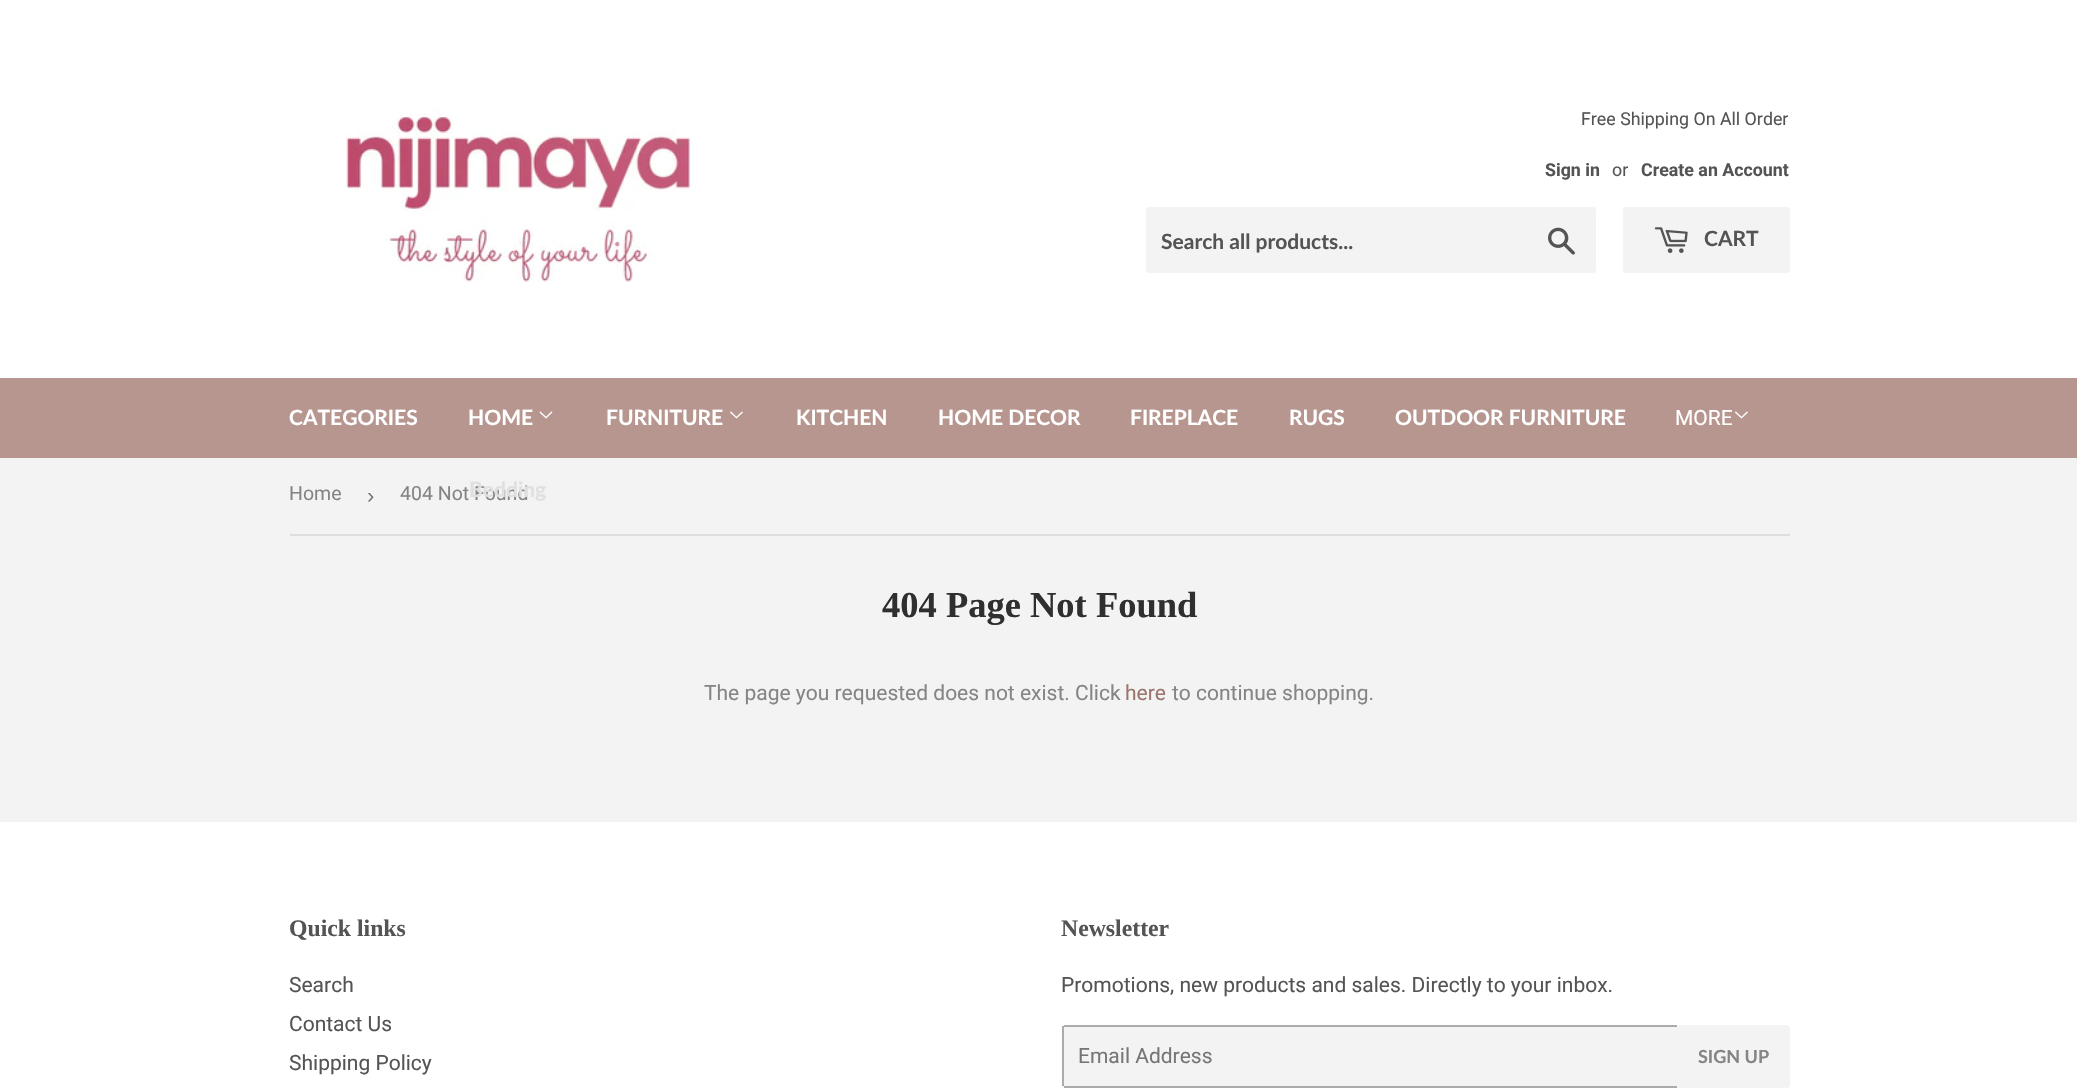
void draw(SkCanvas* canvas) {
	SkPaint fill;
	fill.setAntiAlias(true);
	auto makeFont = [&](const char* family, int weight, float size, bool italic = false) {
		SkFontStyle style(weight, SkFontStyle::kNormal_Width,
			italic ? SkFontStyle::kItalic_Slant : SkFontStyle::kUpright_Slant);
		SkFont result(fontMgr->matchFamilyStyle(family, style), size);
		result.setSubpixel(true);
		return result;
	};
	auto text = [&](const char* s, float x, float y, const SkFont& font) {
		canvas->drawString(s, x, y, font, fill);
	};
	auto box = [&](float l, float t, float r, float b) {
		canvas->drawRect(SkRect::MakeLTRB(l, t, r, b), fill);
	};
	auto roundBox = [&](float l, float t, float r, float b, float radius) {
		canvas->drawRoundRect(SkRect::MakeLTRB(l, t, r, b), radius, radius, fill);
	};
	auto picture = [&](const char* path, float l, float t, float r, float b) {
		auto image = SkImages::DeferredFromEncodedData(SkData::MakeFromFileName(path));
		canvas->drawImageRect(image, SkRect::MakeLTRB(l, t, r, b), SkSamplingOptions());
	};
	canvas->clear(0xFFF3F3F3);
	fill.setColor(0xFFFFFFFF);
	box(0, 0, 2077, 378);
	picture("image0.png", 346, 108, 691, 282);
	fill.setColor(0xFFF3F3F3);
	roundBox(1146, 207, 1596, 273, 3);
	picture("image1.png", 1548, 227, 1575, 255);
	roundBox(1623, 207, 1790, 273, 3);
	picture("image2.png", 1654, 227, 1688, 253);
	fill.setColor(0xFFB79690);
	box(0, 378, 2077, 458);
	picture("image3.png", 539, 411, 553, 419);
	picture("image4.png", 730, 411, 743, 419);
	picture("image4.png", 1735, 411, 1748, 419);
	fill.setColor(0xFFDEDEDE);
	box(290, 534, 1790, 536);
	fill.setColor(0xFFFFFFFF);
	box(0, 822, 2077, 1090);
	fill.setColor(0xFFF3F3F3);
	roundBox(1062, 1025, 1679, 1088, 3);
	fill.setColor(0xFFABABAB);
	box(1064, 1025, 1677, 1027);
	box(1064, 1086, 1677, 1088);
	box(1062, 1026, 1064, 1086);
	fill.setColor(0xFFF3F3F3);
	canvas->drawPath(SkPathBuilder().moveTo(1679, 1025).lineTo(1787, 1025).cubicTo(1788.5f, 1025, 1790, 1026.5f, 1790, 1028).lineTo(1790, 1085).cubicTo(1790, 1086.5f, 1788.5f, 1088, 1787, 1088).lineTo(1679, 1088).close().detach(), fill);
	auto font1 = makeFont("Roboto", 400, 17.8f);
	fill.setColor(0xFF545454);
	text("Free Shipping On All Order", 1581, 125, font1);
	auto font2 = makeFont("Roboto", 700, 17.8f);
	text("Sign in", 1545, 176, font2);
	text("or", 1612, 176, font1);
	text("Create an Account", 1641, 176, font2);
	auto font3 = makeFont("Lato", 700, 21);
	text("Search all products...", 1161, 249, font3);
	text("CART", 1704, 246, font3);
	fill.setColor(0xFFFFFFFF);
	text("CATEGORIES", 289, 425, font3);
	text("HOME", 468, 425, font3);
	text("FURNITURE", 606, 425, font3);
	text("KITCHEN", 796, 425, font3);
	text("HOME DECOR", 938, 425, font3);
	text("FIREPLACE", 1130, 425, font3);
	text("RUGS", 1289, 425, font3);
	text("OUTDOOR FURNITURE", 1395, 425, font3);
	auto font4 = makeFont("Roboto", 400, 21);
	text("MORE", 1675, 425, font4);
	auto font5 = makeFont("Roboto", 400, 19.5f);
	fill.setColor(0xFF858585);
	text("Home", 289, 500, font5);
	auto font6 = makeFont("Liberation Sans", 400, 22);
	fill.setColor(0xFF767676);
	text("›", 367, 503, font6);
	fill.setColor(0xFF858585);
	text("404 Not Found", 400, 500, font5);
	fill.setColor(0xFFE0E0E0);
	text("Bedding", 469, 497, font3);
	auto font7 = makeFont("Liberation Serif", 700, 36.5f);
	fill.setColor(0xFF2F2F2F);
	text("404 Page Not Found", 882, 617, font7);
	fill.setColor(0xFF858585);
	text("The page you requested does not exist. Click", 704, 700, font4);
	fill.setColor(0xFF9C756F);
	text("here", 1125, 700, font4);
	fill.setColor(0xFF858585);
	text("to continue shopping.", 1172, 700, font4);
	auto font8 = makeFont("Liberation Serif", 700, 23.75f);
	fill.setColor(0xFF545454);
	text("Quick links", 289, 936, font8);
	text("Search", 289, 992, font4);
	text("Contact Us", 289, 1031, font4);
	text("Shipping Policy", 289, 1070, font4);
	text("Newsletter", 1061, 936, font8);
	text("Promotions, new products and sales. Directly to your inbox.", 1061, 992, font4);
	fill.setColor(0xFF767676);
	text("Email Address", 1078, 1063, font4);
	auto font9 = makeFont("Lato", 700, 18);
	fill.setColor(0xFF858585);
	text("SIGN UP", 1698, 1063, font9);
}
